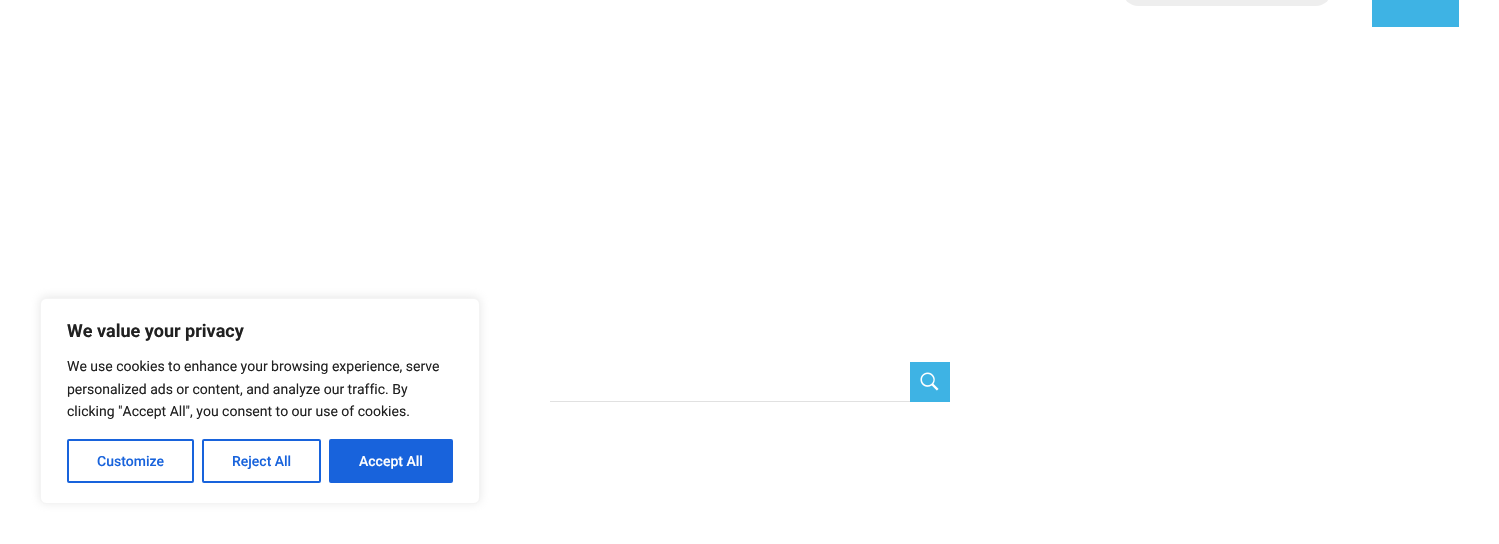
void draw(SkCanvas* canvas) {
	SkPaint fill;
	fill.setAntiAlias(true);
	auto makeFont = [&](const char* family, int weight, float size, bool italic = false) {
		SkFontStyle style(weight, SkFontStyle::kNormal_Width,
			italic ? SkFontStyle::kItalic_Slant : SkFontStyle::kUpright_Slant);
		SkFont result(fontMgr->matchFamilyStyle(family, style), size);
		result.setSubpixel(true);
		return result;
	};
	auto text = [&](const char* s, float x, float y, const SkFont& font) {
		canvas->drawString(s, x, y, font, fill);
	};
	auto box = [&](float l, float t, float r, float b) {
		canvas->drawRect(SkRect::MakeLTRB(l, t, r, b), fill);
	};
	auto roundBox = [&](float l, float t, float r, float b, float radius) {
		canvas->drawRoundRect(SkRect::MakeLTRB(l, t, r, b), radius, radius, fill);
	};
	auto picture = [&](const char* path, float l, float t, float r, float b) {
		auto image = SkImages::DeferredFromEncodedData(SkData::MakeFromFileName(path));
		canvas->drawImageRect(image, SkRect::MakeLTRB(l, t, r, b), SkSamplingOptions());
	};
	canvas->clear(0xFFFFFFFF);
	fill.setColor(0x4DACABAB);
	fill.setMaskFilter(SkMaskFilter::MakeBlur(kNormal_SkBlurStyle, 5));
	canvas->drawRoundRect(SkRect::MakeLTRB(40, 297, 480, 503), 6, 6, fill);
	fill.setMaskFilter(nullptr);
	fill.setColor(0xFFFFFFFF);
	canvas->drawRoundRect(SkRect::MakeLTRB(40.5f, 298.5f, 479.5f, 503.5f), 5.5f, 5.5f, fill);
	fill.setStyle(SkPaint::kStroke_Style);
	fill.setStrokeWidth(1);
	fill.setColor(0xFFF4F4F4);
	canvas->drawRoundRect(SkRect::MakeLTRB(40.5f, 298.5f, 479.5f, 503.5f), 5.5f, 5.5f, fill);
	fill.setStrokeWidth(2);
	fill.setColor(0xFF1863DC);
	canvas->drawRoundRect(SkRect::MakeLTRB(68, 440, 193, 482), 1, 1, fill);
	canvas->drawRoundRect(SkRect::MakeLTRB(203, 440, 320, 482), 1, 1, fill);
	fill.setStyle(SkPaint::kFill_Style);
	canvas->drawRoundRect(SkRect::MakeLTRB(330, 440, 452, 482), 1, 1, fill);
	fill.setStyle(SkPaint::kStroke_Style);
	canvas->drawRoundRect(SkRect::MakeLTRB(330, 440, 452, 482), 1, 1, fill);
	fill.setStyle(SkPaint::kFill_Style);
	fill.setColor(0xFFEEEEEE);
	roundBox(1122, -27, 1332, 6, 27);
	fill.setColor(0xFF3EB3E4);
	box(1372, 0, 1459, 27);
	fill.setColor(0xFFE1E1E1);
	box(550, 401, 910, 402);
	fill.setColor(0xFF3EB3E4);
	box(910, 362, 950, 402);
	picture("image0.png", 920, 372, 939, 391);
	auto font1 = makeFont("Roboto", 700, 18);
	fill.setColor(0xFF212121);
	text("We value your privacy", 67, 337, font1);
	auto font2 = makeFont("Roboto", 400, 14);
	text("We use cookies to enhance your browsing experience, serve", 67, 371, font2);
	text("personalized ads or content, and analyze our traffic. By", 67, 394, font2);
	text("clicking \"Accept All\", you consent to our use of cookies.", 67, 416, font2);
	auto font3 = makeFont("Roboto", 500, 14);
	fill.setColor(0xFF1863DC);
	text("Customize", 97, 466, font3);
	text("Reject All", 232, 466, font3);
	fill.setColor(0xFFFFFFFF);
	text("Accept All", 359, 466, font3);
}
